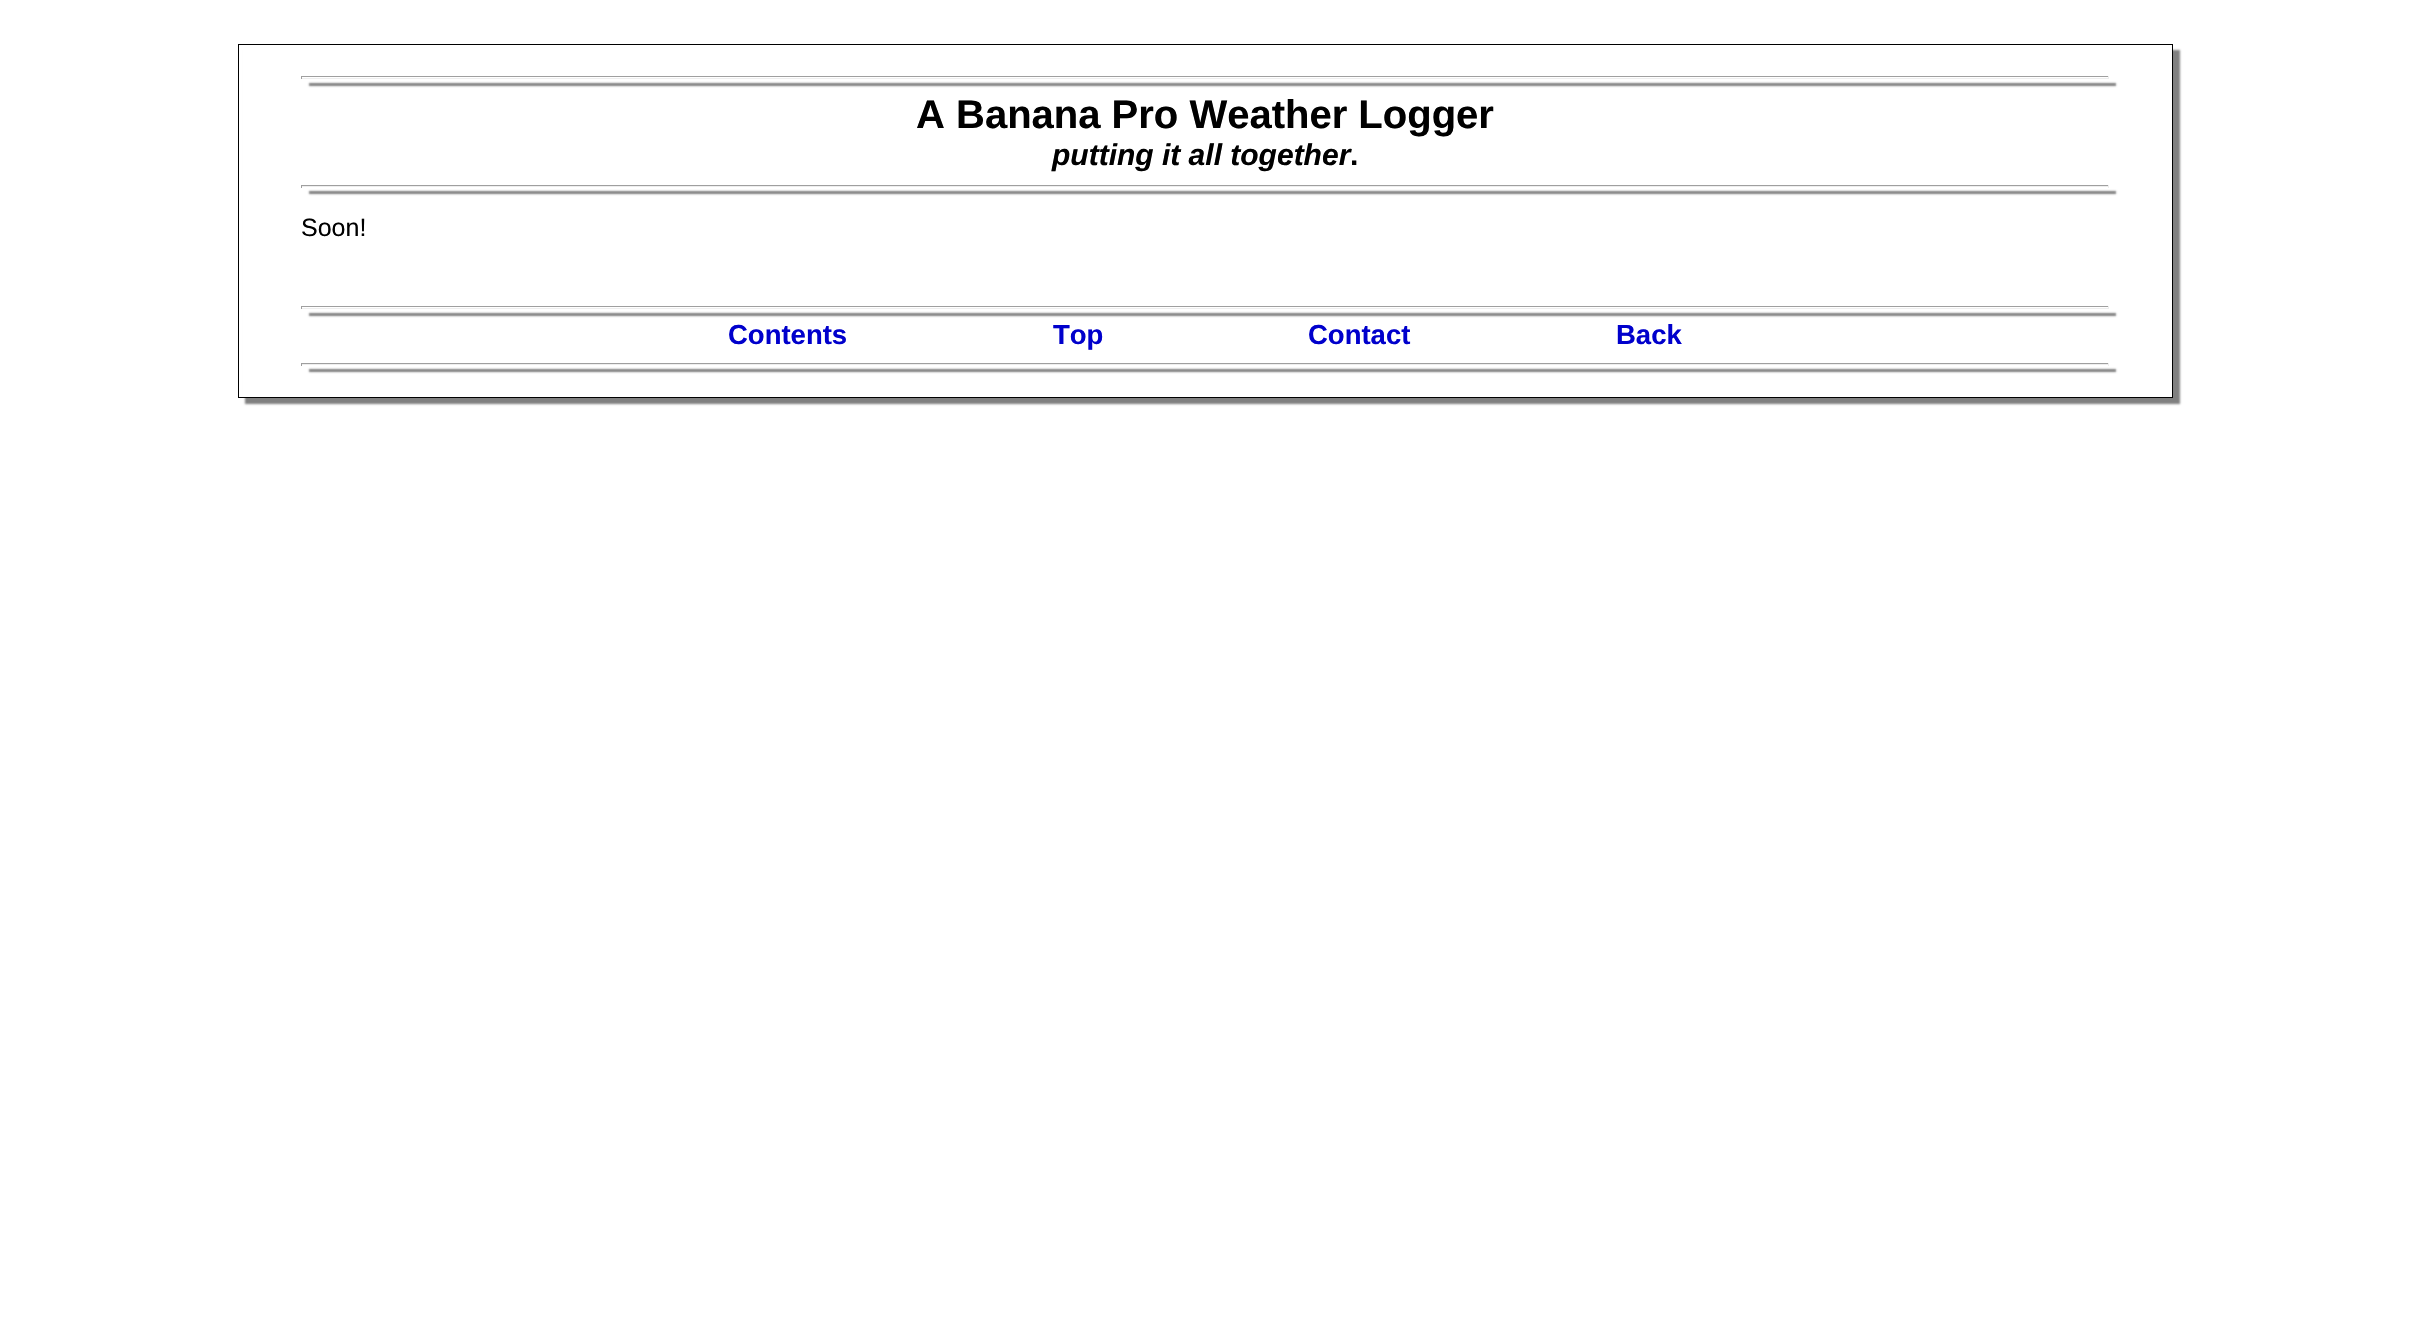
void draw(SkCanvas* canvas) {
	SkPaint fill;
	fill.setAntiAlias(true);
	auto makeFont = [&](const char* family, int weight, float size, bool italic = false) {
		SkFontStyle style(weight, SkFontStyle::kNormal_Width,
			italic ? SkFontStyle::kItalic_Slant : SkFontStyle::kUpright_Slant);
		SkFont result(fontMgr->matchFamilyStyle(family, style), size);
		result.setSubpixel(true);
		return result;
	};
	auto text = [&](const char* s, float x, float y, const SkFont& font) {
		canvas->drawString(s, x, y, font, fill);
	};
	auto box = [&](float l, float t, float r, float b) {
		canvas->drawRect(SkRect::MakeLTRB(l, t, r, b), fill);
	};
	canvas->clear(0xFFFFFFFF);
	fill.setColor(0xFF808080);
	fill.setMaskFilter(SkMaskFilter::MakeBlur(kNormal_SkBlurStyle, 1));
	canvas->drawRect(SkRect::MakeLTRB(245, 50, 2180, 404), fill);
	fill.setMaskFilter(nullptr);
	fill.setColor(0xFFFFFFFF);
	box(243, 48, 2172, 397);
	fill.setStyle(SkPaint::kStroke_Style);
	fill.setStrokeWidth(1);
	fill.setColor(0xFF000000);
	canvas->drawRect(SkRect::MakeLTRB(238.5f, 44.5f, 2172.5f, 397.5f), fill);
	fill.setStyle(SkPaint::kFill_Style);
	fill.setColor(0xFF808080);
	fill.setMaskFilter(SkMaskFilter::MakeBlur(kNormal_SkBlurStyle, 1));
	canvas->drawRect(SkRect::MakeLTRB(309, 83, 2116, 86), fill);
	fill.setMaskFilter(nullptr);
	fill.setColor(0xFF9F9F9F);
	box(301, 76, 2109, 77);
	fill.setColor(0xFFEEEEEE);
	box(2108, 76, 2109, 79);
	box(301, 78, 2109, 79);
	fill.setColor(0xFF9F9F9F);
	box(301, 76, 302, 79);
	fill.setColor(0xFF808080);
	fill.setMaskFilter(SkMaskFilter::MakeBlur(kNormal_SkBlurStyle, 1));
	canvas->drawRect(SkRect::MakeLTRB(309, 191, 2116, 194), fill);
	fill.setMaskFilter(nullptr);
	fill.setColor(0xFF9F9F9F);
	box(301, 185, 2109, 186);
	fill.setColor(0xFFEEEEEE);
	box(2108, 185, 2109, 188);
	box(301, 186, 2109, 187);
	fill.setColor(0xFF9F9F9F);
	box(301, 185, 302, 188);
	fill.setColor(0xFF808080);
	fill.setMaskFilter(SkMaskFilter::MakeBlur(kNormal_SkBlurStyle, 1));
	canvas->drawRect(SkRect::MakeLTRB(309, 313, 2116, 316), fill);
	fill.setMaskFilter(nullptr);
	fill.setColor(0xFF9F9F9F);
	box(301, 306, 2109, 307);
	fill.setColor(0xFFEEEEEE);
	box(2108, 306, 2109, 309);
	box(301, 308, 2109, 309);
	fill.setColor(0xFF9F9F9F);
	box(301, 306, 302, 309);
	fill.setColor(0xFF808080);
	fill.setMaskFilter(SkMaskFilter::MakeBlur(kNormal_SkBlurStyle, 1));
	canvas->drawRect(SkRect::MakeLTRB(309, 369, 2116, 372), fill);
	fill.setMaskFilter(nullptr);
	fill.setColor(0xFF9F9F9F);
	box(301, 363, 2109, 364);
	fill.setColor(0xFFEEEEEE);
	box(2108, 363, 2109, 366);
	box(301, 364, 2109, 365);
	fill.setColor(0xFF9F9F9F);
	box(301, 363, 302, 366);
	auto font1 = makeFont("Liberation Sans", 700, 40);
	fill.setColor(0xFF000000);
	text("A Banana Pro Weather Logger", 916, 128, font1);
	auto font2 = makeFont("Liberation Sans", 700, 30, true);
	text("putting it all together", 1052, 165, font2);
	auto font3 = makeFont("Liberation Sans", 700, 30);
	text(".", 1350, 165, font3);
	auto font4 = makeFont("Liberation Sans", 400, 25);
	text("Soon!", 301, 236, font4);
	auto font5 = makeFont("Liberation Sans", 700, 27.5f);
	fill.setColor(0xFF0000CC);
	text("Contents", 728, 344, font5);
	text("Top", 1053, 344, font5);
	text("Contact", 1308, 344, font5);
	text("Back", 1616, 344, font5);
}
